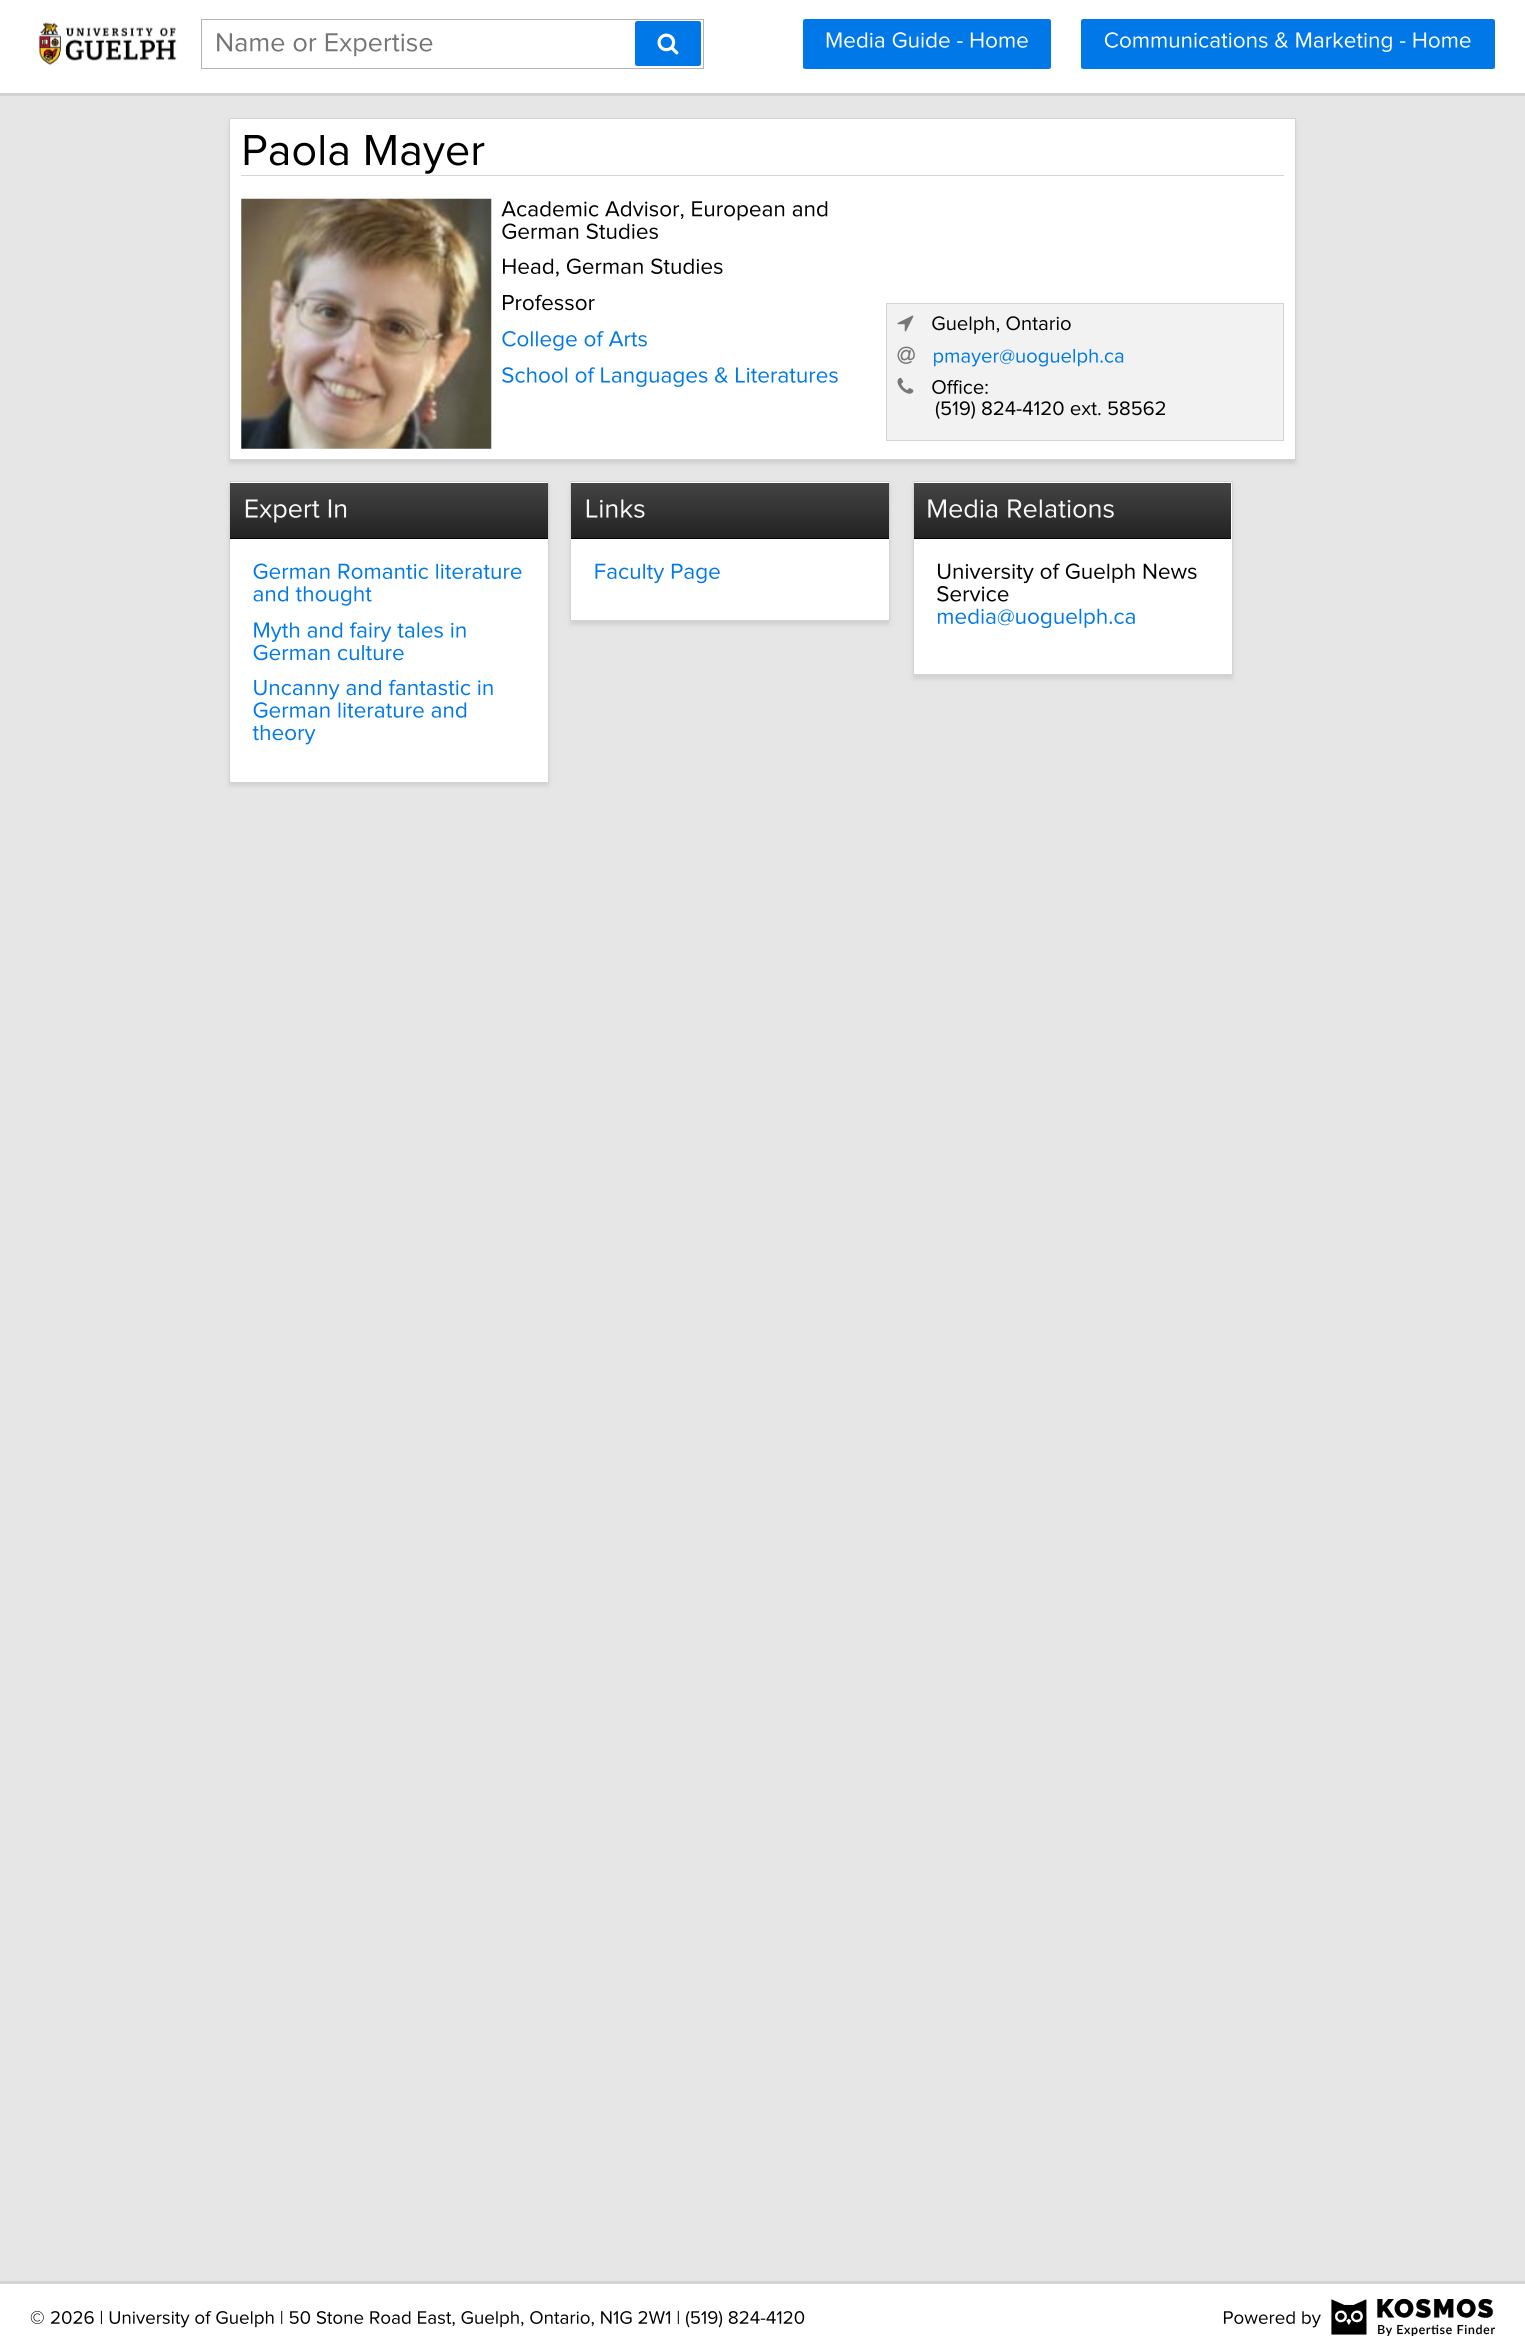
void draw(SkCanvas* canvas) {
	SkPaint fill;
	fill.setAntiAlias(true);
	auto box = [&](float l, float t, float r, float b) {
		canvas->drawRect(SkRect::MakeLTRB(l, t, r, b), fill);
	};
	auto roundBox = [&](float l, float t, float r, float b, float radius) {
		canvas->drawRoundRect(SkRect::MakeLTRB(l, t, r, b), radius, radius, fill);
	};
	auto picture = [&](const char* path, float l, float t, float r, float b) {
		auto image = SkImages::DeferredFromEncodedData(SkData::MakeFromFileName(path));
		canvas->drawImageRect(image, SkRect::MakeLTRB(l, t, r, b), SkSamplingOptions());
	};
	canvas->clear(0xFFE6E6E6);
	fill.setColor(0xFFFFFFFF);
	box(0, 0, 1525, 93);
	fill.setColor(0xFFD3D3D3);
	box(0, 93, 1525, 96);
	picture("image0.png", 38, 22, 177, 65);
	fill.setStyle(SkPaint::kStroke_Style);
	fill.setStrokeWidth(1);
	fill.setColor(0xFFB3B3B3);
	canvas->drawRect(SkRect::MakeLTRB(201.5f, 19.5f, 703.5f, 68.5f), fill);
	picture("image1.png", 217, 33, 433, 57);
	fill.setStyle(SkPaint::kFill_Style);
	fill.setColor(0xFF0078E7);
	roundBox(635, 21, 701, 66, 2.5f);
	picture("image2.png", 657, 33, 679, 55);
	roundBox(803, 19, 1051, 69, 2.5f);
	picture("image3.png", 826, 32, 1028, 48);
	roundBox(1081, 19, 1495, 69, 2.5f);
	picture("image4.png", 1104, 32, 1471, 52);
	fill.setColor(0x17000000);
	fill.setMaskFilter(SkMaskFilter::MakeBlur(kNormal_SkBlurStyle, 2));
	canvas->drawRect(SkRect::MakeLTRB(229, 121, 1296, 464), fill);
	fill.setMaskFilter(nullptr);
	fill.setColor(0xFFFFFFFF);
	canvas->drawRect(SkRect::MakeLTRB(229.5f, 118.5f, 1295.5f, 459.5f), fill);
	fill.setStyle(SkPaint::kStroke_Style);
	fill.setColor(0xFFD3D3D3);
	canvas->drawRect(SkRect::MakeLTRB(229.5f, 118.5f, 1295.5f, 459.5f), fill);
	fill.setStyle(SkPaint::kFill_Style);
	fill.setColor(0xFFD5D5D5);
	box(241, 175, 1284, 176);
	picture("image5.png", 244, 135, 485, 174);
	picture("image6.png", 241, 198, 492, 449);
	picture("image7.png", 501, 201, 828, 221);
	picture("image8.png", 502, 223, 658, 239);
	picture("image9.png", 503, 258, 723, 277);
	picture("image10.png", 503, 294, 595, 311);
	fill.setColor(0xFFF2F2F2);
	canvas->drawRect(SkRect::MakeLTRB(886.5f, 303.5f, 1283.5f, 440.5f), fill);
	fill.setStyle(SkPaint::kStroke_Style);
	fill.setColor(0xFFD5D5D5);
	canvas->drawRect(SkRect::MakeLTRB(886.5f, 303.5f, 1283.5f, 440.5f), fill);
	picture("image11.png", 897, 315, 914, 332);
	picture("image12.png", 932, 316, 1071, 334);
	picture("image13.png", 897, 346, 915, 364);
	picture("image14.png", 934, 349, 1124, 367);
	picture("image15.png", 897, 377, 914, 394);
	picture("image16.png", 932, 380, 988, 394);
	picture("image17.png", 935, 401, 1165, 419);
	picture("image18.png", 502, 331, 647, 351);
	picture("image19.png", 502, 367, 838, 387);
	fill.setStyle(SkPaint::kFill_Style);
	fill.setColor(0x17000000);
	fill.setMaskFilter(SkMaskFilter::MakeBlur(kNormal_SkBlurStyle, 2));
	canvas->drawRect(SkRect::MakeLTRB(229, 485, 549, 786), fill);
	fill.setMaskFilter(nullptr);
	fill.setColor(0xFFFFFFFF);
	canvas->drawRect(SkRect::MakeLTRB(229.5f, 481.5f, 548.5f, 782.5f), fill);
	fill.setStyle(SkPaint::kStroke_Style);
	fill.setColor(0xFFD3D3D3);
	canvas->drawRect(SkRect::MakeLTRB(229.5f, 481.5f, 548.5f, 782.5f), fill);
	fill.setStyle(SkPaint::kFill_Style);
	{
		const SkColor colors[] = {0xFF444444, 0xFF222222};
		const float stops[] = {0, 1};
		const SkPoint ends[] = {{389, 483}, {389, 538}};
		fill.setShader(SkGradientShader::MakeLinear(ends, colors, stops, 2, SkTileMode::kClamp));
		fill.setAlpha(255);
	}
	box(230, 483, 548, 538);
	fill.setShader(nullptr);
	fill.setColor(0xFF000000);
	box(230, 538, 548, 539);
	picture("image20.png", 245, 499, 347, 523);
	picture("image21.png", 253, 563, 522, 579);
	picture("image22.png", 253, 586, 372, 606);
	picture("image23.png", 254, 622, 466, 642);
	picture("image24.png", 253, 644, 404, 661);
	picture("image25.png", 254, 679, 493, 700);
	picture("image26.png", 253, 702, 467, 718);
	picture("image27.png", 252, 725, 316, 745);
	fill.setColor(0x17000000);
	fill.setMaskFilter(SkMaskFilter::MakeBlur(kNormal_SkBlurStyle, 2));
	canvas->drawRect(SkRect::MakeLTRB(570, 485, 890, 625), fill);
	fill.setMaskFilter(nullptr);
	fill.setColor(0xFFFFFFFF);
	canvas->drawRect(SkRect::MakeLTRB(570.5f, 481.5f, 889.5f, 620.5f), fill);
	fill.setStyle(SkPaint::kStroke_Style);
	fill.setColor(0xFFD3D3D3);
	canvas->drawRect(SkRect::MakeLTRB(570.5f, 481.5f, 889.5f, 620.5f), fill);
	fill.setStyle(SkPaint::kFill_Style);
	{
		const SkColor colors[] = {0xFF444444, 0xFF222222};
		const float stops[] = {0, 1};
		const SkPoint ends[] = {{730, 483}, {730, 538}};
		fill.setShader(SkGradientShader::MakeLinear(ends, colors, stops, 2, SkTileMode::kClamp));
		fill.setAlpha(255);
	}
	box(571, 483, 889, 538);
	fill.setShader(nullptr);
	fill.setColor(0xFF000000);
	box(571, 538, 889, 539);
	picture("image28.png", 586, 499, 645, 518);
	picture("image29.png", 595, 563, 720, 584);
	fill.setColor(0x17000000);
	fill.setMaskFilter(SkMaskFilter::MakeBlur(kNormal_SkBlurStyle, 2));
	canvas->drawRect(SkRect::MakeLTRB(913, 485, 1233, 679), fill);
	fill.setMaskFilter(nullptr);
	fill.setColor(0xFFFFFFFF);
	canvas->drawRect(SkRect::MakeLTRB(913.5f, 481.5f, 1232.5f, 674.5f), fill);
	fill.setStyle(SkPaint::kStroke_Style);
	fill.setColor(0xFFD3D3D3);
	canvas->drawRect(SkRect::MakeLTRB(913.5f, 481.5f, 1232.5f, 674.5f), fill);
	fill.setStyle(SkPaint::kFill_Style);
	{
		const SkColor colors[] = {0xFF444444, 0xFF222222};
		const float stops[] = {0, 1};
		const SkPoint ends[] = {{1073, 483}, {1073, 538}};
		fill.setShader(SkGradientShader::MakeLinear(ends, colors, stops, 2, SkTileMode::kClamp));
		fill.setAlpha(255);
	}
	box(914, 483, 1231, 538);
	fill.setShader(nullptr);
	fill.setColor(0xFF000000);
	box(914, 538, 1231, 539);
	picture("image30.png", 928, 499, 1114, 518);
	picture("image31.png", 938, 563, 1197, 584);
	picture("image32.png", 937, 586, 1009, 602);
	picture("image33.png", 937, 608, 1135, 629);
	fill.setColor(0xFFFFFFFF);
	box(0, 2284, 1525, 2351);
	fill.setColor(0xFFD3D3D3);
	box(0, 2281, 1525, 2284);
	picture("image34.png", 30, 2311, 44, 2324);
	picture("image35.png", 51, 2310, 805, 2328);
	picture("image36.png", 1223, 2311, 1321, 2328);
	picture("image37.png", 1331, 2299, 1495, 2336);
}
